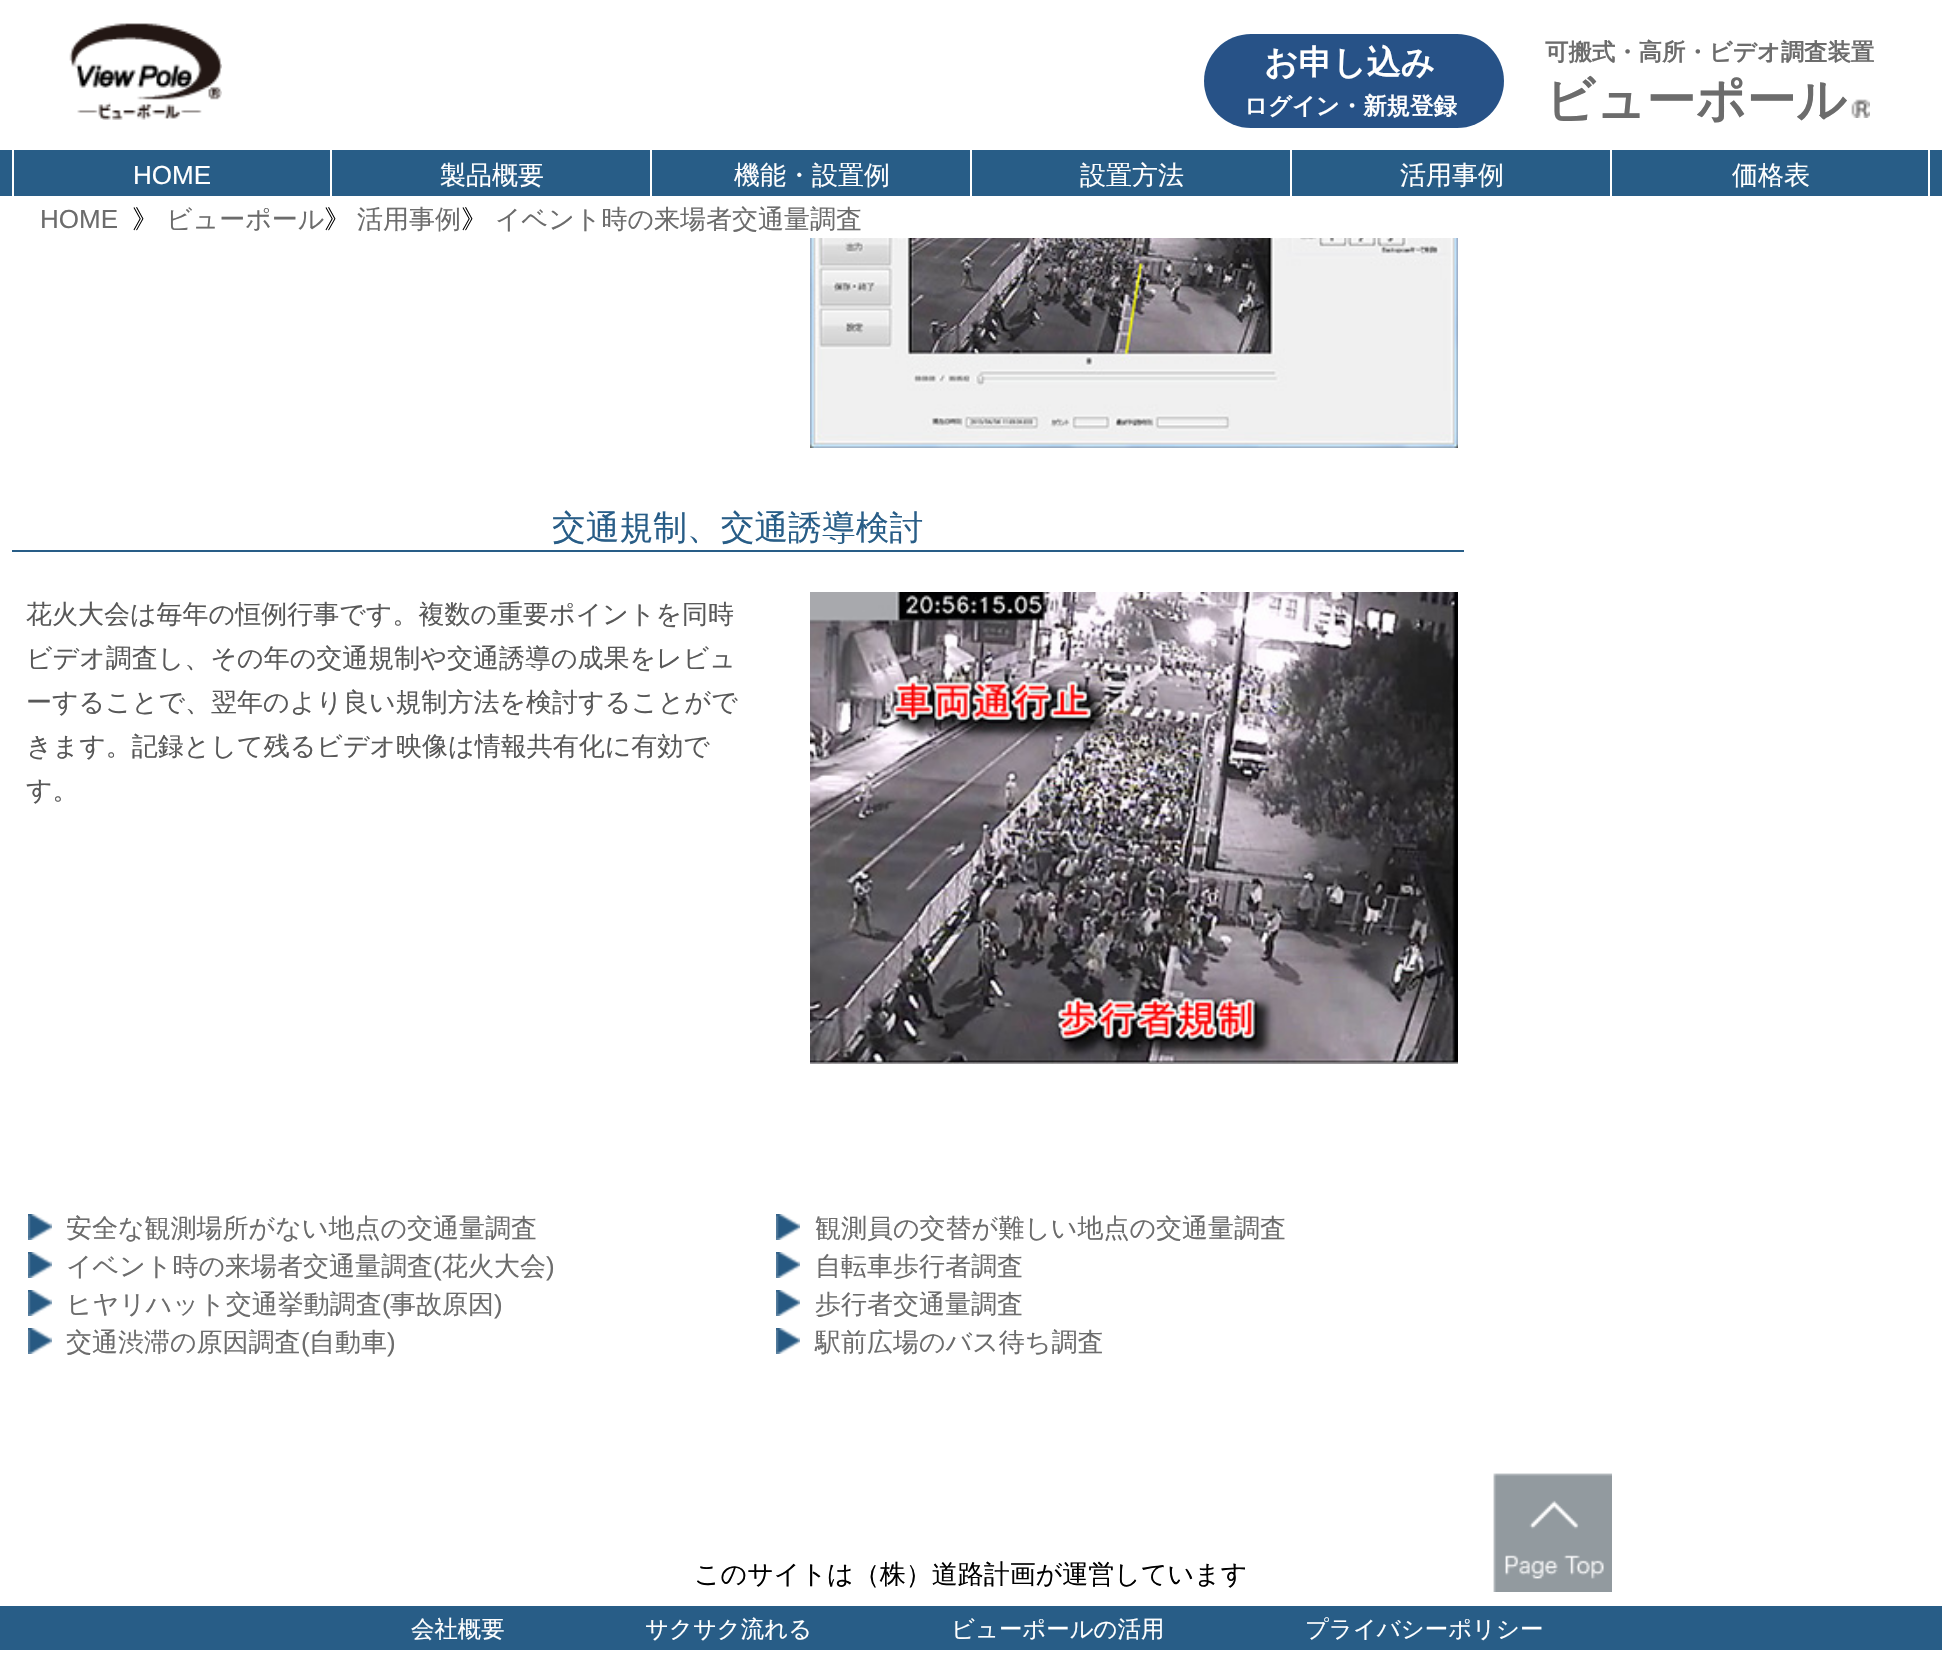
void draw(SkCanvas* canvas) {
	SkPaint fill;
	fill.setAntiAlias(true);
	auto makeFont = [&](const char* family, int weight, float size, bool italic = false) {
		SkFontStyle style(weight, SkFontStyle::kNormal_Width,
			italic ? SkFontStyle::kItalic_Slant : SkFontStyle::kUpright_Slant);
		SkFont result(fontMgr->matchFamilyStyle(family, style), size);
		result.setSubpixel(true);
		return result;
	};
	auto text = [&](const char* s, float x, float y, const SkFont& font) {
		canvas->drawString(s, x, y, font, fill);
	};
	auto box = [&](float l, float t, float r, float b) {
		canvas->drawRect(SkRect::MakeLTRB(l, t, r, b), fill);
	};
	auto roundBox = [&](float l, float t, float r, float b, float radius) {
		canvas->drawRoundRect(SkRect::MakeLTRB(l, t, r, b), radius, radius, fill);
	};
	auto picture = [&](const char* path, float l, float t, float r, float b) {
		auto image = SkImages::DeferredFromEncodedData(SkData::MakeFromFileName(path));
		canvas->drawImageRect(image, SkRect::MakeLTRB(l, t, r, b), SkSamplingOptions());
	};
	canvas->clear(0xFFFFFFFF);
	picture("image0.png", 69, 23, 222, 120);
	fill.setColor(0xFF275287);
	roundBox(1204, 34, 1504, 128, 47);
	picture("image1.png", 1851, 99, 1870, 118);
	fill.setColor(0xFF285D87);
	box(0, 150, 1942, 196);
	fill.setColor(0xFFFFFFFF);
	box(12, 150, 14, 196);
	box(330, 150, 332, 196);
	box(650, 150, 652, 196);
	box(970, 150, 972, 196);
	box(1290, 150, 1292, 196);
	box(1928, 150, 1930, 196);
	box(1610, 150, 1612, 196);
	picture("image2.png", 810, 238, 1458, 448);
	fill.setColor(0xFF285D87);
	box(12, 550, 1464, 552);
	picture("image3.png", 810, 592, 1458, 1064);
	picture("image4.png", 28, 1214, 52, 1240);
	picture("image4.png", 28, 1252, 52, 1278);
	picture("image4.png", 28, 1290, 52, 1316);
	picture("image4.png", 28, 1328, 52, 1354);
	picture("image4.png", 776, 1214, 800, 1240);
	picture("image4.png", 776, 1252, 800, 1278);
	picture("image4.png", 776, 1290, 800, 1316);
	picture("image4.png", 776, 1328, 800, 1354);
	picture("image5.png", 1493, 1473, 1612, 1592);
	box(0, 1606, 1942, 1650);
	auto font1 = makeFont("WenQuanYi Zen Hei", 700, 33.75f);
	fill.setColor(0xFFFFFFFF);
	text("お申し込み", 1264, 74, font1);
	auto font2 = makeFont("WenQuanYi Zen Hei", 700, 23.4f);
	text("ログイン・新規登録", 1244, 114, font2);
	fill.setColor(0xFF6C6C6C);
	text("可搬式・高所・ビデオ調査装置", 1545, 60, font2);
	auto font3 = makeFont("WenQuanYi Zen Hei", 700, 49.5f);
	text("ビューポール", 1545, 117, font3);
	auto font4 = makeFont("Liberation Sans", 400, 26);
	fill.setColor(0xFFFFFFFF);
	text("HOME", 133, 184, font4);
	auto font5 = makeFont("WenQuanYi Zen Hei", 500, 26);
	text("製品概要", 440, 184, font5);
	text("機能・設置例", 734, 184, font5);
	text("設置方法", 1080, 184, font5);
	text("活用事例", 1400, 184, font5);
	text("価格表", 1732, 184, font5);
	fill.setColor(0xFF6C6C6C);
	text("HOME", 40, 228, font4);
	fill.setColor(0xFF000000);
	text("》", 132, 228, font5);
	fill.setColor(0xFF6C6C6C);
	text("ビューポール", 166, 228, font5);
	fill.setColor(0xFF000000);
	text("》", 324, 228, font5);
	fill.setColor(0xFF6C6C6C);
	text("活用事例", 357, 228, font5);
	fill.setColor(0xFF000000);
	text("》", 461, 228, font5);
	fill.setColor(0xFF6C6C6C);
	text("イベント時の来場者交通量調査", 495, 228, font5);
	auto font6 = makeFont("WenQuanYi Zen Hei", 500, 33.75f);
	fill.setColor(0xFF285D87);
	text("交通規制、交通誘導検討", 552, 539, font6);
	fill.setColor(0xFF585858);
	text("花火大会は毎年の恒例行事です。複数の重要ポイントを同時", 26, 623, font5);
	text("ビデオ調査し、その年の交通規制や交通誘導の成果をレビュ", 26, 667, font5);
	text("ーすることで、翌年のより良い規制方法を検討することがで", 26, 711, font5);
	text("きます。記録として残るビデオ映像は情報共有化に有効で", 26, 755, font5);
	text("す。", 26, 799, font5);
	fill.setColor(0xFF6C6C6C);
	text("安全な観測場所がない地点の交通量調査", 66, 1237, font5);
	text("イベント時の来場者交通量調査", 66, 1275, font5);
	text("(", 433, 1275, font4);
	text("花火大会", 442, 1275, font5);
	text(")", 546, 1275, font4);
	text("ヒヤリハット交通挙動調査", 66, 1313, font5);
	text("(", 382, 1313, font4);
	text("事故原因", 390, 1313, font5);
	text(")", 494, 1313, font4);
	text("交通渋滞の原因調査", 66, 1351, font5);
	text("(", 301, 1351, font4);
	text("自動車", 309, 1351, font5);
	text(")", 387, 1351, font4);
	text("観測員の交替が難しい地点の交通量調査", 815, 1237, font5);
	text("自転車歩行者調査", 815, 1275, font5);
	text("歩行者交通量調査", 815, 1313, font5);
	text("駅前広場のバス待ち調査", 815, 1351, font5);
	fill.setColor(0xFF000000);
	text("このサイトは（株）道路計画が運営しています", 694, 1583, font5);
	auto font7 = makeFont("WenQuanYi Zen Hei", 500, 23.4f);
	fill.setColor(0xFFFFFFFF);
	text("会社概要", 411, 1637, font7);
	text("サクサク流れる", 645, 1637, font7);
	text("ビューポールの活用", 951, 1637, font7);
	text("プライバシーポリシー", 1305, 1637, font7);
}
